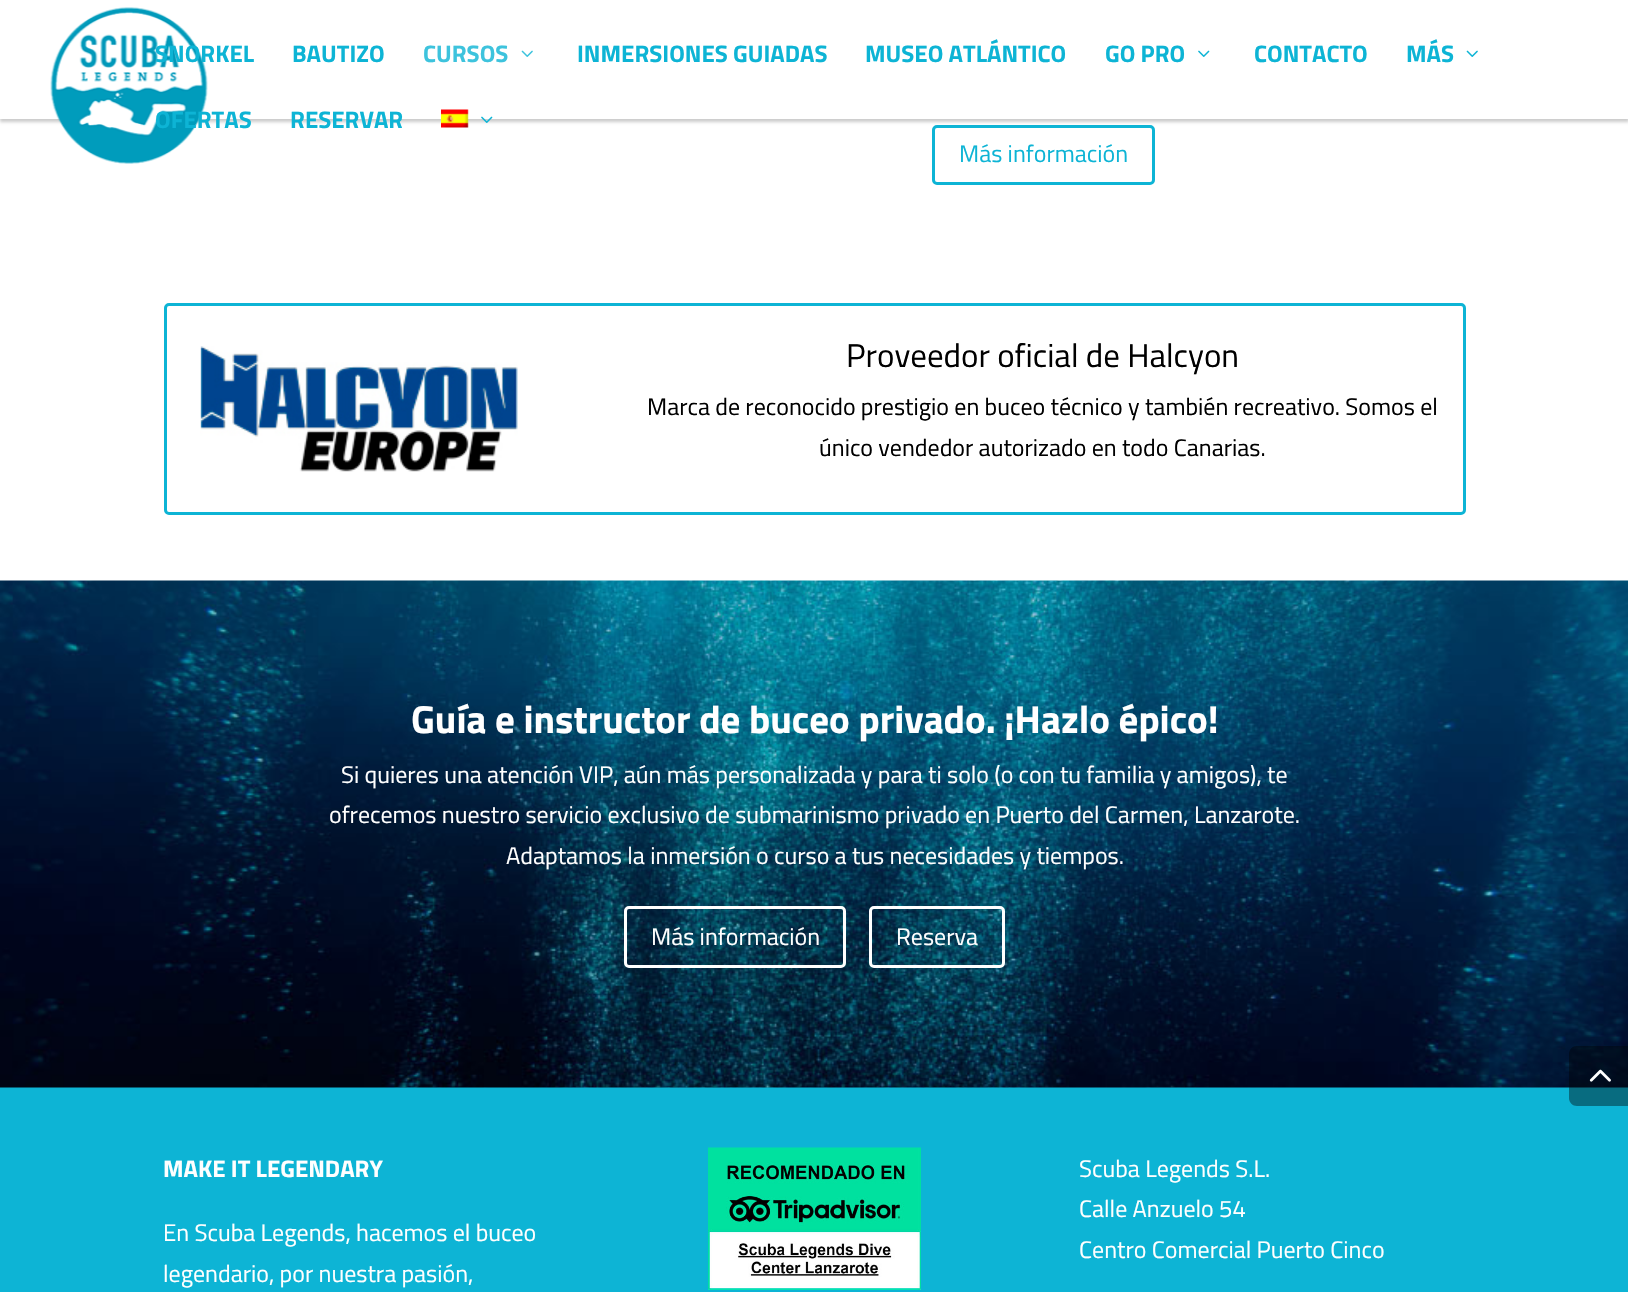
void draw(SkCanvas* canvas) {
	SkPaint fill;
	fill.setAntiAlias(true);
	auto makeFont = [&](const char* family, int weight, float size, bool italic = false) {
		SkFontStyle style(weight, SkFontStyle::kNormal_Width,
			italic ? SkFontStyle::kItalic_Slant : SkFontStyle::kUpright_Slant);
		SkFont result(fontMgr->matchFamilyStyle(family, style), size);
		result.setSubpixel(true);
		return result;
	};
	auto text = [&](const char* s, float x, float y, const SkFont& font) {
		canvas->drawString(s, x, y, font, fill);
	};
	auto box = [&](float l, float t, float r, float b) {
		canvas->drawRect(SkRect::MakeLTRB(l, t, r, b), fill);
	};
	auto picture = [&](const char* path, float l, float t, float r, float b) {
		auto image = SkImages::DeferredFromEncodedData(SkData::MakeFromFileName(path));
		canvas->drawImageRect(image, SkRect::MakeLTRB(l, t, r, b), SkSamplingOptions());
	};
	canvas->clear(0xFFFFFFFF);
	fill.setStyle(SkPaint::kStroke_Style);
	fill.setStrokeWidth(3);
	fill.setColor(0xFF0DB4D5);
	canvas->drawRoundRect(SkRect::MakeLTRB(933.5f, 126.5f, 1153.5f, 183.5f), 3.5f, 3.5f, fill);
	canvas->save();
	canvas->clipPath(SkPathBuilder(SkPathFillType::kEvenOdd).moveTo(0, 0).lineTo(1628, 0).lineTo(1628, 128).lineTo(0, 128).close().moveTo(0, 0).lineTo(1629, 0).lineTo(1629, 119).lineTo(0, 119).close().detach(), true);
	fill.setStyle(SkPaint::kFill_Style);
	fill.setColor(0x33000000);
	fill.setMaskFilter(SkMaskFilter::MakeBlur(kNormal_SkBlurStyle, 1.5f));
	canvas->drawRect(SkRect::MakeLTRB(0, 3, 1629, 122), fill);
	fill.setMaskFilter(nullptr);
	canvas->restore();
	fill.setColor(0xFCFFFFFF);
	box(0, 118, 1628, 119);
	picture("image0.png", 50, 7, 208, 164);
	picture("image1.png", 521, 50, 533, 57);
	picture("image2.png", 1198, 50, 1210, 57);
	picture("image3.png", 1466, 50, 1478, 57);
	picture("image4.png", 441, 109, 469, 128);
	picture("image5.png", 481, 116, 493, 123);
	fill.setStyle(SkPaint::kStroke_Style);
	fill.setColor(0xFF0DB4D5);
	canvas->drawRoundRect(SkRect::MakeLTRB(165.5f, 304.5f, 1464.5f, 513.5f), 3.5f, 3.5f, fill);
	picture("image6.png", 200, 346, 518, 472);
	fill.setStyle(SkPaint::kFill_Style);
	box(0, 1087, 1628, 1292);
	picture("image7.png", 0, 580, 1628, 1088);
	fill.setStyle(SkPaint::kStroke_Style);
	fill.setColor(0xFFFFFFFF);
	canvas->drawRoundRect(SkRect::MakeLTRB(625.5f, 907.5f, 844.5f, 966.5f), 3.5f, 3.5f, fill);
	canvas->drawRoundRect(SkRect::MakeLTRB(870.5f, 907.5f, 1003.5f, 966.5f), 3.5f, 3.5f, fill);
	picture("image8.png", 708, 1147, 921, 1290);
	fill.setStyle(SkPaint::kFill_Style);
	fill.setColor(0x66000000);
	canvas->drawPath(SkPathBuilder().moveTo(1577, 1046).lineTo(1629, 1046).lineTo(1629, 1106).lineTo(1577, 1106).cubicTo(1572.5f, 1106, 1569, 1102.5f, 1569, 1098).lineTo(1569, 1054).cubicTo(1569, 1049.5f, 1572.5f, 1046, 1577, 1046).close().detach(), fill);
	picture("image9.png", 1589, 1069, 1611, 1082);
	auto font1 = makeFont("Titillium Web", 700, 24);
	fill.setColor(0xFF0DB4D5);
	text("SNORKEL", 155, 62, font1);
	text("BAUTIZO", 292, 62, font1);
	fill.setColor(0xFF3DC3DD);
	text("CURSOS", 423, 62, font1);
	fill.setColor(0xFF0DB4D5);
	text("INMERSIONES GUIADAS", 577, 62, font1);
	text("MUSEO ATLÁNTICO", 865, 62, font1);
	text("GO PRO", 1105, 62, font1);
	text("CONTACTO", 1254, 62, font1);
	text("MÁS", 1406, 62, font1);
	text("OFERTAS", 155, 128, font1);
	text("RESERVAR", 290, 128, font1);
	auto font2 = makeFont("Titillium Web", 400, 24);
	text("Más información", 959, 162, font2);
	auto font3 = makeFont("Titillium Web", 400, 33);
	fill.setColor(0xFF000000);
	text("Proveedor oficial de Halcyon", 846, 367, font3);
	text("Marca de reconocido prestigio en buceo técnico y también recreativo. Somos el", 647, 415, font2);
	text("único vendedor autorizado en todo Canarias.", 819, 456, font2);
	auto font4 = makeFont("Titillium Web", 700, 39);
	fill.setColor(0xFFFFFFFF);
	text("Guía e instructor de buceo privado. ¡Hazlo épico!", 411, 733, font4);
	text("Si quieres una atención VIP, aún más personalizada y para ti solo (o con tu familia y amigos), te", 341, 783, font2);
	text("ofrecemos nuestro servicio exclusivo de submarinismo privado en Puerto del Carmen, Lanzarote.", 329, 823, font2);
	text("Adaptamos la inmersión o curso a tus necesidades y tiempos.", 506, 864, font2);
	text("Más información", 651, 945, font2);
	text("Reserva", 896, 945, font2);
	text("MAKE IT LEGENDARY", 163, 1177, font1);
	text("En Scuba Legends, hacemos el buceo", 163, 1241, font2);
	text("legendario, por nuestra pasión,", 163, 1282, font2);
	text("Scuba Legends S.L.", 1079, 1177, font2);
	text("Calle Anzuelo 54", 1079, 1217, font2);
	text("Centro Comercial Puerto Cinco", 1079, 1258, font2);
}
